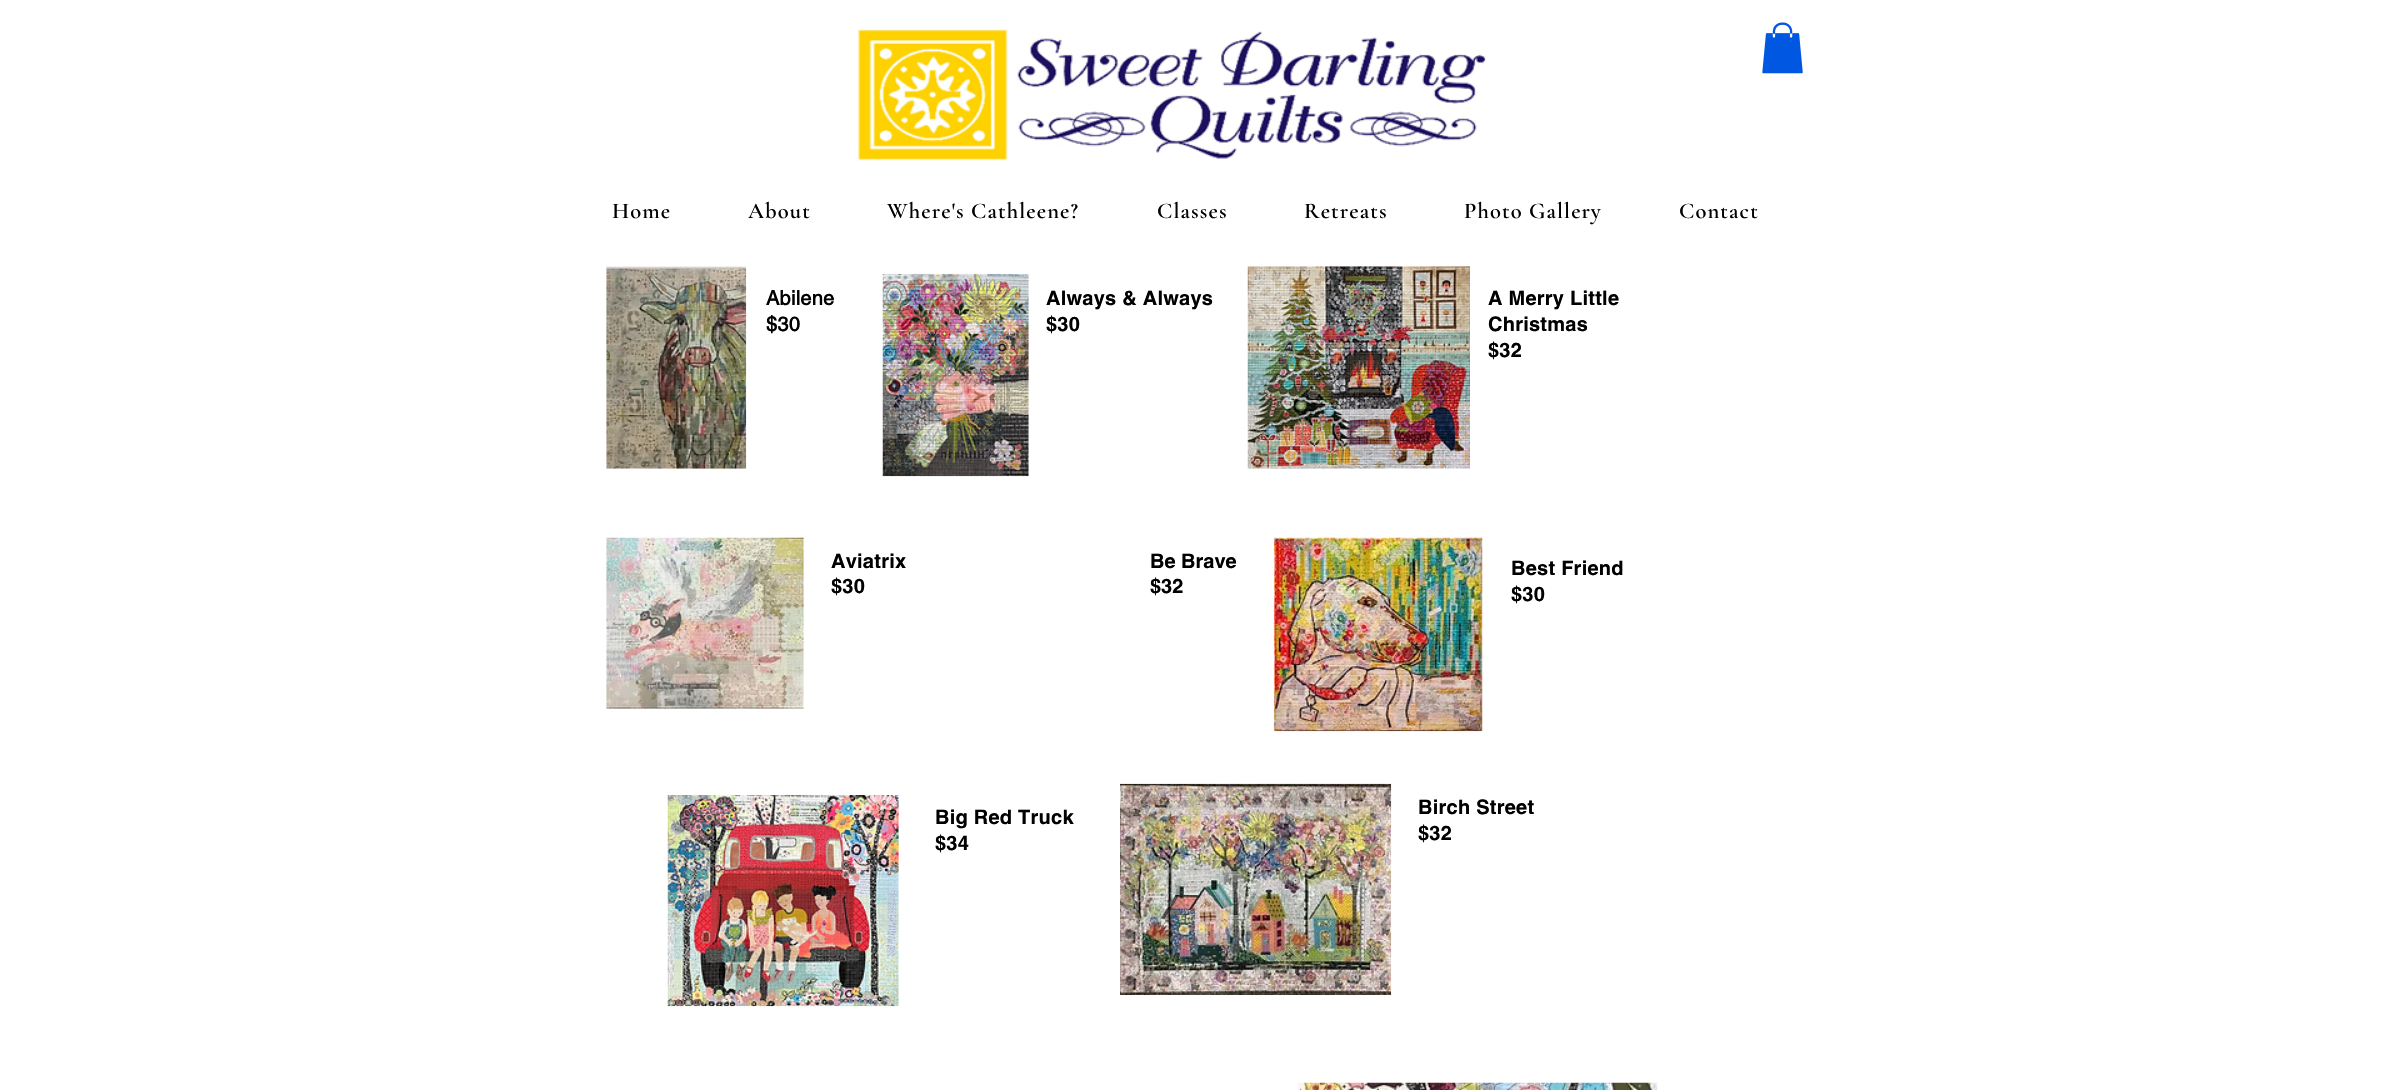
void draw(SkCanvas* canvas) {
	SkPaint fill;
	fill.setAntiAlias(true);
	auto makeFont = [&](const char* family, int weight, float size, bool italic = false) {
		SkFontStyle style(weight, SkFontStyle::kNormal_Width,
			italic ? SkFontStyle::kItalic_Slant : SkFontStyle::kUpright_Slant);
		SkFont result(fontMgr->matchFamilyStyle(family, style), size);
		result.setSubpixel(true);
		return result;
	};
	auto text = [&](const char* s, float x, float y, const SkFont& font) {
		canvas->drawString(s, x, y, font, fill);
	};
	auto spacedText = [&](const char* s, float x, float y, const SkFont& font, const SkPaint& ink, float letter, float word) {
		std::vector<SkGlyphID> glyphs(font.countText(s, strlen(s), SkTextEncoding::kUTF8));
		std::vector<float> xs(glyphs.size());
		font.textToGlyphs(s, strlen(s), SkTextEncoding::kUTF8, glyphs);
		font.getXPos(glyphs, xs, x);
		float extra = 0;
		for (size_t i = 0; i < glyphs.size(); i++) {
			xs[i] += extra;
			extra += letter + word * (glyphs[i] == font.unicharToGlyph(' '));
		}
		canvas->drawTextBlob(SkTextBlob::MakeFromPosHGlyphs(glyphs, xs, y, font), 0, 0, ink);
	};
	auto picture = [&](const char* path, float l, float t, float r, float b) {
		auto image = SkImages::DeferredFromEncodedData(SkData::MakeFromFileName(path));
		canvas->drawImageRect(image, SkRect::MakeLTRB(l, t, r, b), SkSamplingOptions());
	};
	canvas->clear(0xFFFFFFFF);
	picture("image0.png", 857, 29, 1486, 161);
	picture("image1.png", 1762, 22, 1803, 74);
	picture("image2.png", 606, 266, 747, 469);
	picture("image3.png", 882, 273, 1029, 477);
	picture("image4.png", 1247, 266, 1470, 469);
	picture("image5.png", 606, 537, 804, 709);
	picture("image6.png", 1273, 537, 1483, 732);
	picture("image7.png", 667, 795, 899, 1007);
	picture("image8.png", 1120, 783, 1392, 995);
	picture("image9.png", 1298, 1082, 1658, 1090);
	auto font1 = makeFont("Cormorant Garamond", 600, 22.5f);
	fill.setColor(0xFF000000);
	spacedText("Home", 612, 218, font1, fill, 1.1f, 0);
	spacedText("About", 748, 218, font1, fill, 1.1f, 0);
	spacedText("Where's Cathleene?", 887, 218, font1, fill, 1.1f, 0);
	spacedText("Classes", 1157, 218, font1, fill, 1.1f, 0);
	spacedText("Retreats", 1304, 218, font1, fill, 1.1f, 0);
	spacedText("Photo Gallery", 1464, 218, font1, fill, 1.1f, 0);
	spacedText("Contact", 1679, 218, font1, fill, 1.1f, 0);
	auto font2 = makeFont("helvetica", 700, 20);
	spacedText("Abilene", 766, 305, font2, fill, 0.25f, 0);
	spacedText("$30", 766, 331, font2, fill, 0.25f, 0);
	auto font3 = makeFont("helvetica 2", 700, 20);
	spacedText("Always & Always", 1046, 305, font3, fill, 0.25f, 0);
	spacedText("$30", 1046, 331, font3, fill, 0.25f, 0);
	spacedText("A Merry Little", 1488, 305, font3, fill, 0.25f, 0);
	spacedText("Christmas", 1488, 331, font3, fill, 0.25f, 0);
	spacedText("$32", 1488, 357, font3, fill, 0.25f, 0);
	spacedText("Aviatrix", 831, 568, font3, fill, 0.25f, 0);
	spacedText("$30", 831, 593, font3, fill, 0.25f, 0);
	text("Be Brave", 1150, 568, font3);
	text("$32", 1150, 593, font3);
	spacedText("Best Friend", 1511, 575, font3, fill, 0.25f, 0);
	spacedText("$30", 1511, 601, font3, fill, 0.25f, 0);
	spacedText("Big Red Truck", 935, 824, font3, fill, 0.25f, 0);
	spacedText("$34", 935, 850, font3, fill, 0.25f, 0);
	spacedText("Birch Street", 1418, 814, font3, fill, 0.25f, 0);
	spacedText("$32", 1418, 840, font3, fill, 0.25f, 0);
}
